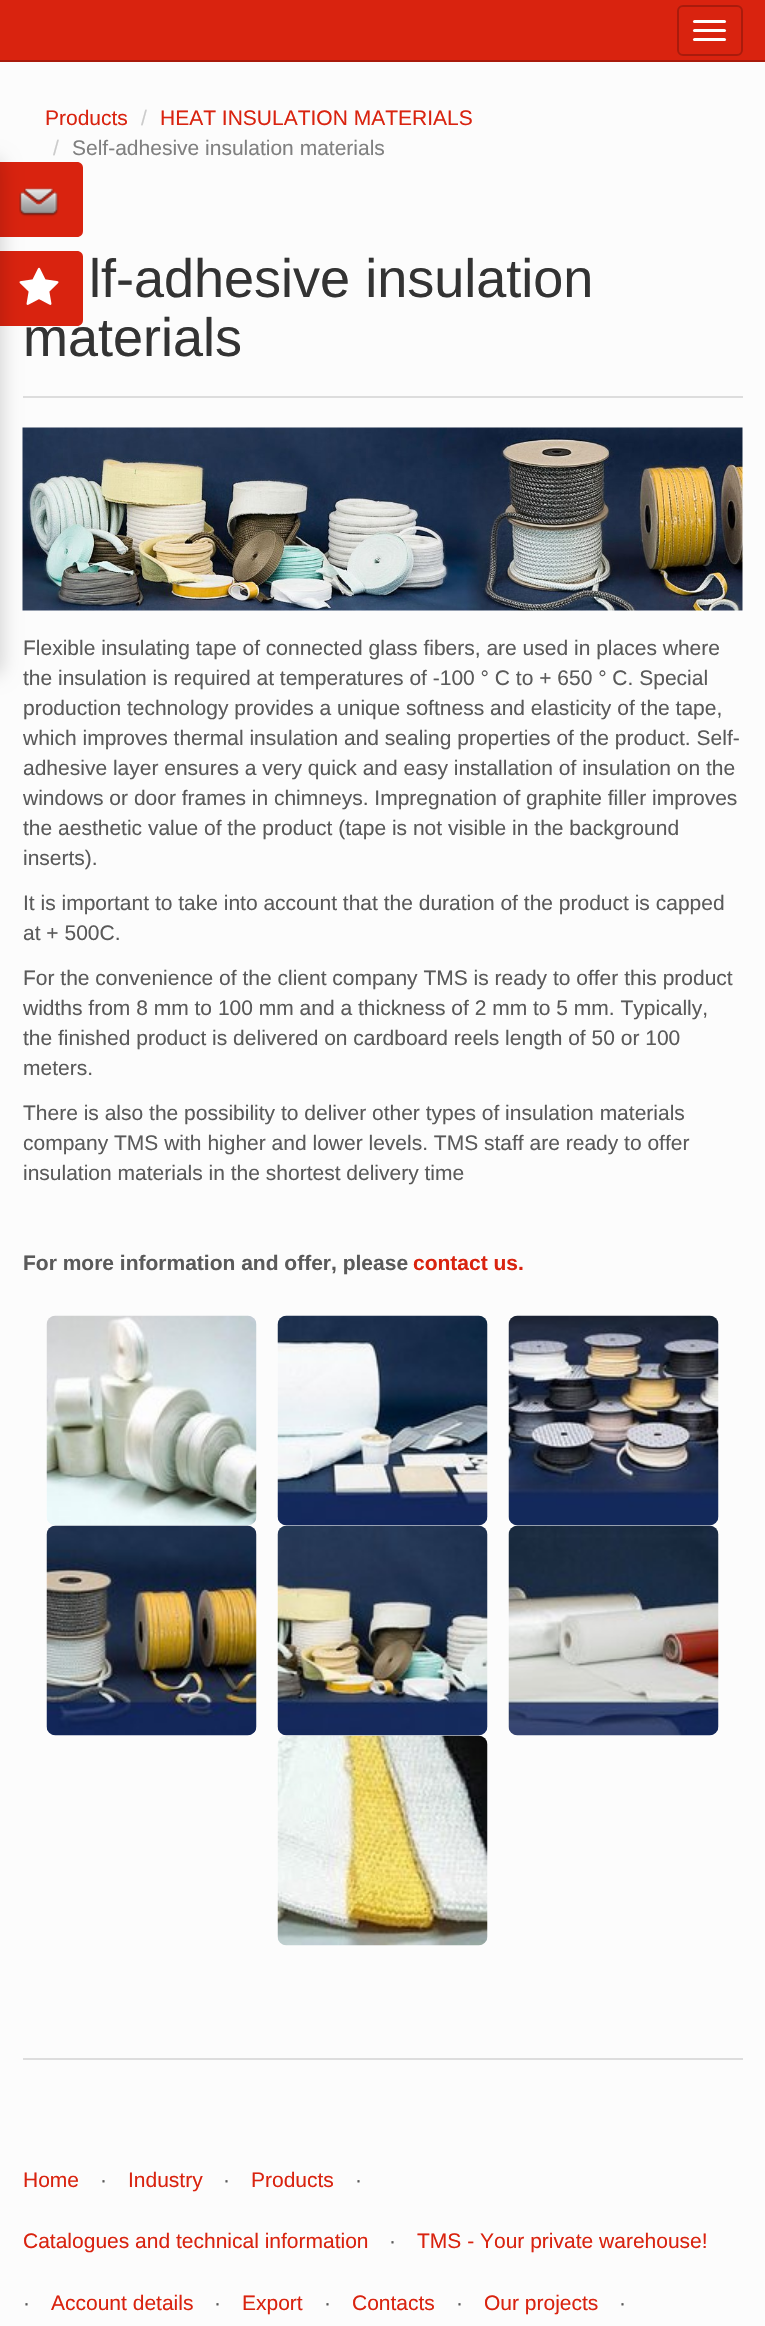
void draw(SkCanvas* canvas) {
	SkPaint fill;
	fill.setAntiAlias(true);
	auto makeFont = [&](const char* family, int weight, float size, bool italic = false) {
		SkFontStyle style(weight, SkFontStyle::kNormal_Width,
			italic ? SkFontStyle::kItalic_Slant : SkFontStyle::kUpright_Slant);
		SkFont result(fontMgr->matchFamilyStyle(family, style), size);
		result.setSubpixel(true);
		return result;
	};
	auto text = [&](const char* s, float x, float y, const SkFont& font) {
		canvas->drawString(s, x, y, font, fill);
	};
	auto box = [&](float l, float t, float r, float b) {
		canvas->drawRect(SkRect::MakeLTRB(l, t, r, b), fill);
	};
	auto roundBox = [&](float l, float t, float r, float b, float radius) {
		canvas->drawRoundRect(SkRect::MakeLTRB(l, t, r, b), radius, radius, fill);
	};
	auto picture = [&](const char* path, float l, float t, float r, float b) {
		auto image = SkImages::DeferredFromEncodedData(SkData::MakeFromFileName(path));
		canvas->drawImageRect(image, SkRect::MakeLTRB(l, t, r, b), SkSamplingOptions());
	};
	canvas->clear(0xFFFCFCFC);
	fill.setColor(0xFFD9230F);
	box(0, 0, 765, 60);
	fill.setColor(0xFFA91B0C);
	box(0, 60, 765, 62);
	fill.setStyle(SkPaint::kStroke_Style);
	fill.setStrokeWidth(2);
	canvas->drawRoundRect(SkRect::MakeLTRB(678, 6, 742, 55), 5, 5, fill);
	fill.setStyle(SkPaint::kFill_Style);
	fill.setColor(0xFFFFFFFF);
	roundBox(693, 20, 726, 23, 1.5f);
	roundBox(693, 29, 726, 32, 1.5f);
	roundBox(693, 38, 726, 41, 1.5f);
	fill.setColor(0xFFDDDDDD);
	box(23, 396, 743, 398);
	picture("image0.png", 22, 427, 743, 611);
	picture("image1.png", 46, 1315, 257, 1526);
	picture("image2.png", 277, 1315, 488, 1526);
	picture("image3.png", 508, 1315, 719, 1526);
	picture("image4.png", 46, 1525, 257, 1736);
	picture("image5.png", 277, 1525, 488, 1736);
	picture("image6.png", 508, 1525, 719, 1736);
	picture("image7.png", 277, 1735, 488, 1946);
	fill.setColor(0xFFD9230F);
	canvas->drawPath(SkPathBuilder().moveTo(0, 162).lineTo(77, 162).cubicTo(80.5f, 162, 83, 164.5f, 83, 168).lineTo(83, 231).cubicTo(83, 234.5f, 80.5f, 237, 77, 237).lineTo(0, 237).close().detach(), fill);
	picture("image9.png", 19, 187, 59, 217);
	fill.setColor(0xFFDDDDDD);
	box(23, 2058, 743, 2060);
	auto font1 = makeFont("Liberation Sans", 400, 21);
	fill.setColor(0xFFD9230F);
	text("Products", 45, 125, font1);
	fill.setColor(0xFFCCCCCC);
	text("/", 141, 125, font1);
	fill.setColor(0xFFD9230F);
	text("HEAT INSULATION MATERIALS", 160, 125, font1);
	fill.setColor(0xFFCCCCCC);
	text("/", 53, 155, font1);
	fill.setColor(0xFF808080);
	text("Self-adhesive insulation materials", 72, 155, font1);
	auto font2 = makeFont("Liberation Sans", 400, 54);
	fill.setColor(0xFF333333);
	text("lf-adhesive insulation", 89, 297, font2);
	text("materials", 23, 356, font2);
	fill.setColor(0xFF5A5A5A);
	text("Flexible insulating tape of connected glass fibers, are used in places where", 23, 655, font1);
	text("the insulation is required at temperatures of -100 ° C to + 650 ° C. Special", 23, 685, font1);
	text("production technology provides a unique softness and elasticity of the tape,", 23, 715, font1);
	text("which improves thermal insulation and sealing properties of the product. Self-", 23, 745, font1);
	text("adhesive layer ensures a very quick and easy installation of insulation on the", 23, 775, font1);
	text("windows or door frames in chimneys. Impregnation of graphite filler improves", 23, 805, font1);
	text("the aesthetic value of the product (tape is not visible in the background", 23, 835, font1);
	text("inserts).", 23, 865, font1);
	text("It is important to take into account that the duration of the product is capped", 23, 910, font1);
	text("at + 500C.", 23, 940, font1);
	text("For the convenience of the client company TMS is ready to offer this product", 23, 985, font1);
	text("widths from 8 mm to 100 mm and a thickness of 2 mm to 5 mm. Typically,", 23, 1015, font1);
	text("the finished product is delivered on cardboard reels length of 50 or 100", 23, 1045, font1);
	text("meters.", 23, 1075, font1);
	text("There is also the possibility to deliver other types of insulation materials", 23, 1120, font1);
	text("company TMS with higher and lower levels. TMS staff are ready to offer", 23, 1150, font1);
	text("insulation materials in the shortest delivery time", 23, 1180, font1);
	auto font3 = makeFont("Liberation Sans", 700, 21);
	text("For more information and offer, please", 23, 1270, font3);
	fill.setColor(0xFFD9230F);
	text("contact us.", 413, 1270, font3);
	canvas->drawPath(SkPathBuilder().moveTo(0, 251).lineTo(77, 251).cubicTo(80.5f, 251, 83, 253.5f, 83, 257).lineTo(83, 320).cubicTo(83, 323.5f, 80.5f, 326, 77, 326).lineTo(0, 326).close().detach(), fill);
	picture("image8.png", 19, 267, 59, 305);
	fill.setColor(0x26000000);
	fill.setMaskFilter(SkMaskFilter::MakeBlur(kNormal_SkBlurStyle, 9));
	canvas->drawRoundRect(SkRect::MakeLTRB(-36, 159, 3, 675), 9, 9, fill);
	fill.setMaskFilter(nullptr);
	fill.setColor(0xFFD9230F);
	text("Home", 23, 2187, font1);
	fill.setColor(0xFF5A5A5A);
	text("·", 100, 2187, font1);
	fill.setColor(0xFFD9230F);
	text("Industry", 128, 2187, font1);
	fill.setColor(0xFF5A5A5A);
	text("·", 223, 2187, font1);
	fill.setColor(0xFFD9230F);
	text("Products", 251, 2187, font1);
	fill.setColor(0xFF5A5A5A);
	text("·", 355, 2187, font1);
	fill.setColor(0xFFD9230F);
	text("Catalogues and technical information", 23, 2248, font1);
	fill.setColor(0xFF5A5A5A);
	text("·", 389, 2248, font1);
	fill.setColor(0xFFD9230F);
	text("TMS - Your private warehouse!", 417, 2248, font1);
	fill.setColor(0xFF5A5A5A);
	text("·", 23, 2310, font1);
	fill.setColor(0xFFD9230F);
	text("Account details", 51, 2310, font1);
	fill.setColor(0xFF5A5A5A);
	text("·", 214, 2310, font1);
	fill.setColor(0xFFD9230F);
	text("Export", 242, 2310, font1);
	fill.setColor(0xFF5A5A5A);
	text("·", 324, 2310, font1);
	fill.setColor(0xFFD9230F);
	text("Contacts", 352, 2310, font1);
	fill.setColor(0xFF5A5A5A);
	text("·", 456, 2310, font1);
	fill.setColor(0xFFD9230F);
	text("Our projects", 484, 2310, font1);
	fill.setColor(0xFF5A5A5A);
	text("·", 619, 2310, font1);
}
